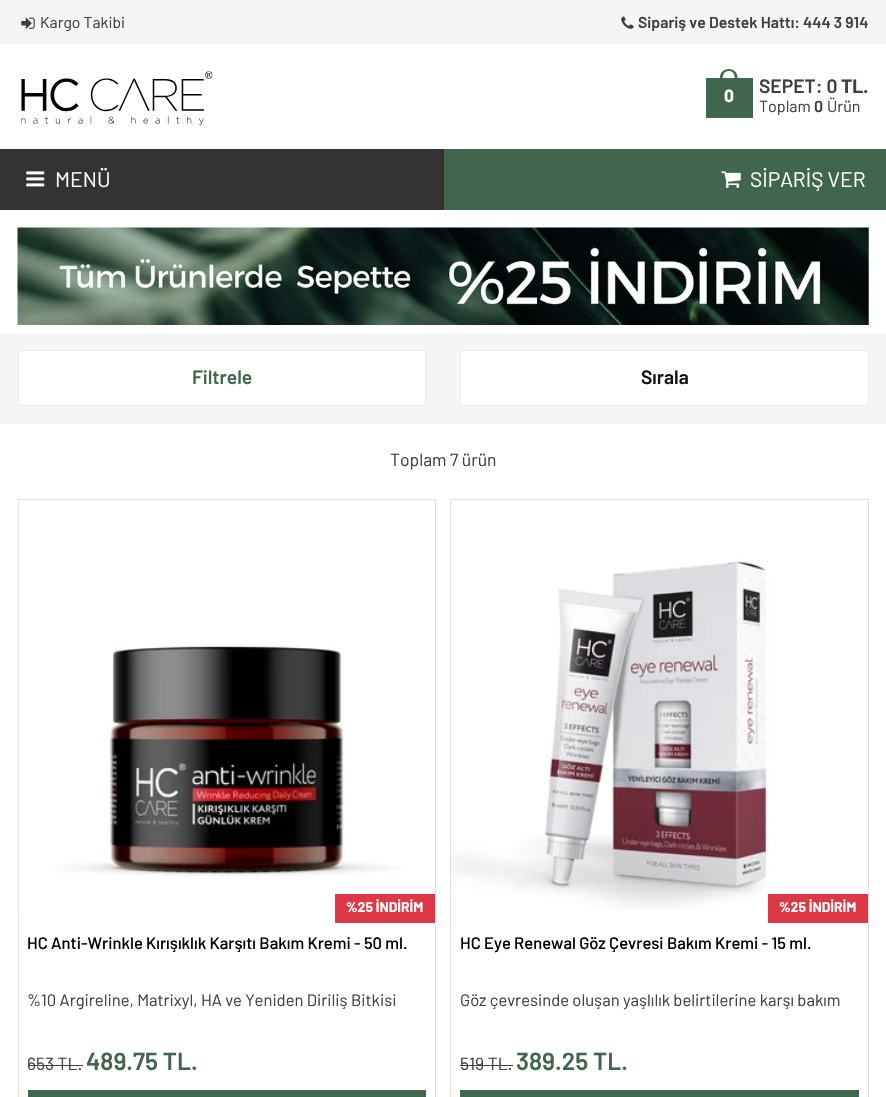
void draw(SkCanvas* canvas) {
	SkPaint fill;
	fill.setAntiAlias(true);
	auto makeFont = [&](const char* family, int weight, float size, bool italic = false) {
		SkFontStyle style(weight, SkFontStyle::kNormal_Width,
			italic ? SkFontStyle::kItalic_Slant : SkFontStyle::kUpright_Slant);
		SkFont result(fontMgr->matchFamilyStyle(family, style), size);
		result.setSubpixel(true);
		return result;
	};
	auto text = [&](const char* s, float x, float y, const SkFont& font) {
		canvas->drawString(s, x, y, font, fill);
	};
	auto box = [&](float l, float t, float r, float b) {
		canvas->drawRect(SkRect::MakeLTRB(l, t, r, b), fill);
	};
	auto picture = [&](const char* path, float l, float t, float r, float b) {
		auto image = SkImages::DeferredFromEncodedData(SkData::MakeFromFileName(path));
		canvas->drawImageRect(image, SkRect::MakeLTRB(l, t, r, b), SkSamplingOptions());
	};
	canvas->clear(0xFFFFFFFF);
	fill.setColor(0xFFF5F5F5);
	box(0, 0, 886, 44);
	picture("image0.png", 21, 17, 35, 29);
	picture("image1.png", 621, 16, 634, 29);
	picture("image2.png", 21, 71, 213, 125);
	fill.setColor(0xFF40664E);
	canvas->drawPath(SkPathBuilder(SkPathFillType::kEvenOdd).moveTo(729, 69).cubicTo(733.5f, 69, 737.5f, 72.5f, 737.5f, 77.5f).lineTo(737.5f, 80).lineTo(720, 80).lineTo(720, 77.5f).cubicTo(720, 72.5f, 724, 69, 729, 69).close().moveTo(729, 71).cubicTo(734, 71, 735, 75.5f, 735, 80).lineTo(722.5f, 80).cubicTo(722.5f, 75.5f, 723.5f, 71, 729, 71).close().detach(), fill);
	box(706, 78, 753, 118);
	fill.setColor(0xFF333333);
	box(0, 149, 444, 210);
	picture("image3.png", 26, 171, 45, 187);
	fill.setColor(0xFF40664E);
	box(444, 149, 886, 210);
	picture("image4.png", 721, 171, 741, 188);
	picture("image5.png", 17, 227, 869, 325);
	fill.setColor(0xFFF5F5F5);
	box(0, 333, 886, 424);
	fill.setColor(0xFFFFFFFF);
	canvas->drawRect(SkRect::MakeLTRB(18.5f, 350.5f, 425.5f, 405.5f), fill);
	fill.setStyle(SkPaint::kStroke_Style);
	fill.setStrokeWidth(1);
	fill.setColor(0xFFEDEDED);
	canvas->drawRect(SkRect::MakeLTRB(18.5f, 350.5f, 425.5f, 405.5f), fill);
	fill.setStyle(SkPaint::kFill_Style);
	fill.setColor(0xFFFFFFFF);
	canvas->drawRect(SkRect::MakeLTRB(460.5f, 350.5f, 868.5f, 405.5f), fill);
	fill.setStyle(SkPaint::kStroke_Style);
	fill.setColor(0xFFEDEDED);
	canvas->drawRect(SkRect::MakeLTRB(460.5f, 350.5f, 868.5f, 405.5f), fill);
	fill.setColor(0xFFDEDEDE);
	canvas->drawRect(SkRect::MakeLTRB(18.5f, 499.5f, 435.5f, 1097.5f), fill);
	picture("image6.png", 18, 500, 401, 916);
	fill.setStyle(SkPaint::kFill_Style);
	fill.setColor(0xFFDE3746);
	box(335, 894, 435, 923);
	fill.setColor(0xFF3F3F3F);
	box(28, 1065, 83, 1066);
	fill.setColor(0xFF40664E);
	box(28, 1090, 426, 1097);
	fill.setStyle(SkPaint::kStroke_Style);
	fill.setColor(0xFFDEDEDE);
	canvas->drawRect(SkRect::MakeLTRB(450.5f, 499.5f, 868.5f, 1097.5f), fill);
	picture("image7.png", 451, 559, 770, 911);
	fill.setStyle(SkPaint::kFill_Style);
	fill.setColor(0xFFDE3746);
	box(768, 894, 868, 923);
	fill.setColor(0xFF3F3F3F);
	box(460, 1065, 513, 1066);
	fill.setColor(0xFF40664E);
	box(460, 1090, 859, 1097);
	auto font1 = makeFont("Barlow", 400, 15.75f);
	fill.setColor(0xFF3F3F3F);
	text("Kargo Takibi", 40, 28, font1);
	auto font2 = makeFont("Barlow", 600, 15.75f);
	text("Sipariş ve Destek Hattı: 444 3 914", 638, 28, font2);
	auto font3 = makeFont("Barlow", 700, 17.5f);
	fill.setColor(0xFFFFFFFF);
	text("0", 724, 102, font3);
	auto font4 = makeFont("Barlow", 600, 19.25f);
	fill.setColor(0xFF3F3F3F);
	text("SEPET: 0", 759, 93, font4);
	auto font5 = makeFont("Barlow", 700, 19.25f);
	text("TL.", 841, 93, font5);
	auto font6 = makeFont("Barlow", 400, 16);
	text("Toplam", 759, 112, font6);
	auto font7 = makeFont("Barlow", 600, 16);
	text("0", 814, 112, font7);
	text("Ürün", 827, 112, font6);
	auto font8 = makeFont("Barlow", 400, 21);
	fill.setColor(0xFFFFFFFF);
	text("MENÜ", 55, 187, font8);
	text("SİPARİŞ VER", 750, 187, font8);
	fill.setColor(0xFF40664E);
	text("Filtrele", 192, 384, font4);
	fill.setColor(0xFF111111);
	text("Sırala", 641, 384, font4);
	auto font9 = makeFont("Barlow", 400, 17.5f);
	fill.setColor(0xFF3F3F3F);
	text("Toplam 7 ürün", 390, 466, font9);
	auto font10 = makeFont("Barlow", 700, 14);
	fill.setColor(0xFFFFFFFF);
	text("%25 İNDİRİM", 346, 912, font10);
	auto font11 = makeFont("Barlow", 500, 16.6f);
	fill.setColor(0xFF000000);
	text("HC Anti-Wrinkle Kırışıklık Karşıtı Bakım Kremi - 50 ml.", 27, 949, font11);
	auto font12 = makeFont("Barlow", 400, 16.6f);
	fill.setColor(0xFF3F3F3F);
	text("%10 Argireline, Matrixyl, HA ve Yeniden Diriliş Bitkisi", 27, 1006, font12);
	text("653 TL.", 27, 1070, font9);
	auto font13 = makeFont("Barlow", 600, 24.5f);
	fill.setColor(0xFF40664E);
	text("489.75 TL.", 86, 1070, font13);
	fill.setColor(0xFFFFFFFF);
	text("%25 İNDİRİM", 779, 912, font10);
	fill.setColor(0xFF000000);
	text("HC Eye Renewal Göz Çevresi Bakım Kremi - 15 ml.", 460, 949, font11);
	fill.setColor(0xFF3F3F3F);
	text("Göz çevresinde oluşan yaşlılık belirtilerine karşı bakım", 460, 1006, font12);
	text("519 TL.", 460, 1070, font9);
	fill.setColor(0xFF40664E);
	text("389.25 TL.", 516, 1070, font13);
}
